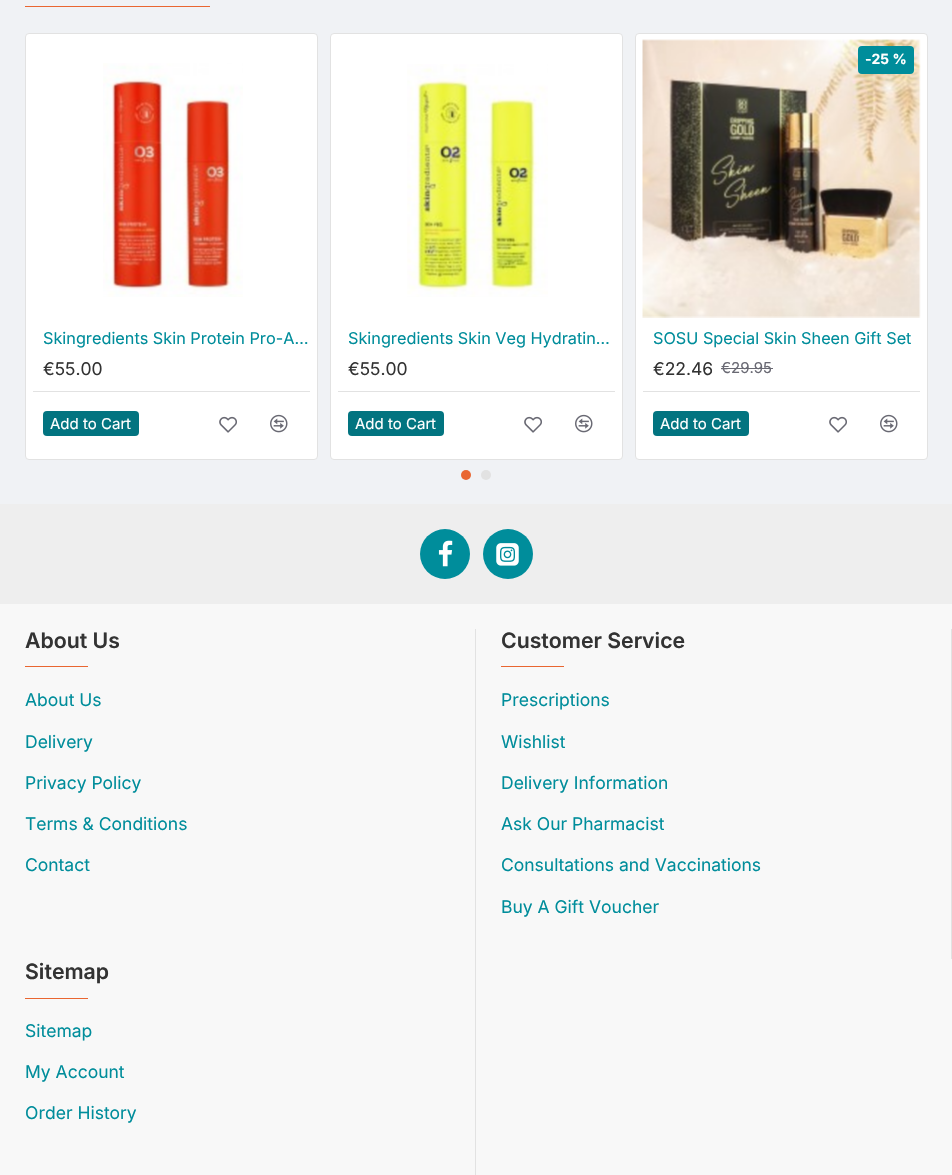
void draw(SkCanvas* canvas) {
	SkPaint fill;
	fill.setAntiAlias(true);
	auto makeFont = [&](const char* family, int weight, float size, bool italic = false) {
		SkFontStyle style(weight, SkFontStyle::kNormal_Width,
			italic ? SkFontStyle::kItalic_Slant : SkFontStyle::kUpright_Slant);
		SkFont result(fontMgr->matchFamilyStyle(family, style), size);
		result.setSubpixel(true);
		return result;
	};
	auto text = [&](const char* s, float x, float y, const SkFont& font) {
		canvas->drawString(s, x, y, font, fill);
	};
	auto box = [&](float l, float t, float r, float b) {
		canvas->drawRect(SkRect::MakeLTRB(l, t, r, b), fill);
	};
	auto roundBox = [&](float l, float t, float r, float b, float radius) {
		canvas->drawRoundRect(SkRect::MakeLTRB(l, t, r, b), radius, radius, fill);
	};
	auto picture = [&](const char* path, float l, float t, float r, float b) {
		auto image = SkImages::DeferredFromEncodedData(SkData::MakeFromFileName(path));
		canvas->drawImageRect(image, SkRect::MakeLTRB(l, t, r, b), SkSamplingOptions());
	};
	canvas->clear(0xFFF8F8F8);
	fill.setColor(0xFFF0F2F5);
	box(0, 0, 952, 504);
	fill.setColor(0xFFE96631);
	box(25, 6, 210, 7);
	fill.setColor(0xFFFFFFFF);
	canvas->drawRoundRect(SkRect::MakeLTRB(25.5f, 33.5f, 317.5f, 459.5f), 3.5f, 3.5f, fill);
	fill.setStyle(SkPaint::kStroke_Style);
	fill.setStrokeWidth(1);
	fill.setColor(0xFFE2E2E2);
	canvas->drawRoundRect(SkRect::MakeLTRB(25.5f, 33.5f, 317.5f, 459.5f), 3.5f, 3.5f, fill);
	picture("image0.png", 103, 63, 243, 297);
	fill.setStyle(SkPaint::kFill_Style);
	box(33, 391, 310, 392);
	fill.setColor(0xFF027480);
	roundBox(43, 411, 139, 436, 4);
	picture("image1.png", 219, 416, 237, 433);
	picture("image2.png", 270, 414, 288, 433);
	fill.setColor(0xFFFFFFFF);
	canvas->drawRoundRect(SkRect::MakeLTRB(330.5f, 33.5f, 622.5f, 459.5f), 3.5f, 3.5f, fill);
	fill.setStyle(SkPaint::kStroke_Style);
	fill.setColor(0xFFE2E2E2);
	canvas->drawRoundRect(SkRect::MakeLTRB(330.5f, 33.5f, 622.5f, 459.5f), 3.5f, 3.5f, fill);
	picture("image3.png", 407, 64, 548, 297);
	fill.setStyle(SkPaint::kFill_Style);
	box(338, 391, 615, 392);
	fill.setColor(0xFF027480);
	roundBox(348, 411, 444, 436, 4);
	picture("image1.png", 524, 416, 542, 433);
	picture("image2.png", 575, 414, 593, 433);
	fill.setColor(0xFFFFFFFF);
	canvas->drawRoundRect(SkRect::MakeLTRB(635.5f, 33.5f, 927.5f, 459.5f), 3.5f, 3.5f, fill);
	fill.setStyle(SkPaint::kStroke_Style);
	fill.setColor(0xFFE2E2E2);
	canvas->drawRoundRect(SkRect::MakeLTRB(635.5f, 33.5f, 927.5f, 459.5f), 3.5f, 3.5f, fill);
	picture("image4.png", 642, 39, 921, 318);
	fill.setStyle(SkPaint::kFill_Style);
	fill.setColor(0xFF008D9B);
	roundBox(858, 46, 914, 74, 4);
	fill.setColor(0xFF696973);
	box(721, 368, 773, 369);
	fill.setColor(0xFFE2E2E2);
	box(643, 391, 920, 392);
	fill.setColor(0xFF027480);
	roundBox(653, 411, 749, 436, 4);
	picture("image1.png", 829, 416, 847, 433);
	picture("image2.png", 880, 414, 898, 433);
	fill.setColor(0xFFE96631);
	canvas->drawCircle(466, 475, 5, fill);
	fill.setColor(0xFFE2E2E2);
	canvas->drawCircle(486, 475, 5, fill);
	fill.setColor(0xFFEEEEEE);
	box(0, 504, 952, 604);
	fill.setColor(0xFF008D9B);
	canvas->drawCircle(445, 554, 25, fill);
	picture("image5.png", 438, 540, 453, 567);
	canvas->drawCircle(508, 554, 25, fill);
	picture("image6.png", 496, 543, 519, 566);
	fill.setColor(0xFFE2E2E2);
	box(475, 629, 476, 1175);
	fill.setColor(0xFFE96631);
	box(25, 666, 88, 667);
	fill.setColor(0xFFE2E2E2);
	box(951, 629, 952, 959);
	fill.setColor(0xFFE96631);
	box(501, 666, 564, 667);
	box(25, 998, 88, 999);
	auto font1 = makeFont("Inter", 400, 16.25f);
	fill.setColor(0xFF008D9B);
	text("Skingredients Skin Protein Pro-A…", 43, 344, font1);
	auto font2 = makeFont("Inter", 400, 17.5f);
	fill.setColor(0xFF333333);
	text("€55.00", 43, 375, font2);
	auto font3 = makeFont("Inter", 400, 15);
	fill.setColor(0xFFFFFFFF);
	text("Add to Cart", 50, 429, font3);
	fill.setColor(0xFF008D9B);
	text("Skingredients Skin Veg Hydratin…", 348, 344, font1);
	fill.setColor(0xFF333333);
	text("€55.00", 348, 375, font2);
	fill.setColor(0xFFFFFFFF);
	text("Add to Cart", 355, 429, font3);
	auto font4 = makeFont("Inter", 700, 14);
	text("-25 %", 865, 64, font4);
	fill.setColor(0xFF008D9B);
	text("SOSU Special Skin Sheen Gift Set", 653, 344, font1);
	fill.setColor(0xFF333333);
	text("€22.46", 653, 375, font2);
	fill.setColor(0xFF696973);
	text("€29.95", 721, 373, font3);
	fill.setColor(0xFFFFFFFF);
	text("Add to Cart", 660, 429, font3);
	auto font5 = makeFont("Inter", 600, 21.25f);
	fill.setColor(0xFF333333);
	text("About Us", 25, 648, font5);
	fill.setColor(0xFF008D9B);
	text("About Us", 25, 706, font2);
	text("Delivery", 25, 748, font2);
	text("Privacy Policy", 25, 789, font2);
	text("Terms & Conditions", 25, 830, font2);
	text("Contact", 25, 871, font2);
	fill.setColor(0xFF333333);
	text("Customer Service", 501, 648, font5);
	fill.setColor(0xFF008D9B);
	text("Prescriptions", 501, 706, font2);
	text("Wishlist", 501, 748, font2);
	text("Delivery Information", 501, 789, font2);
	text("Ask Our Pharmacist", 501, 830, font2);
	text("Consultations and Vaccinations", 501, 871, font2);
	text("Buy A Gift Voucher", 501, 913, font2);
	fill.setColor(0xFF333333);
	text("Sitemap", 25, 979, font5);
	fill.setColor(0xFF008D9B);
	text("Sitemap", 25, 1037, font2);
	text("My Account", 25, 1078, font2);
	text("Order History", 25, 1119, font2);
}
